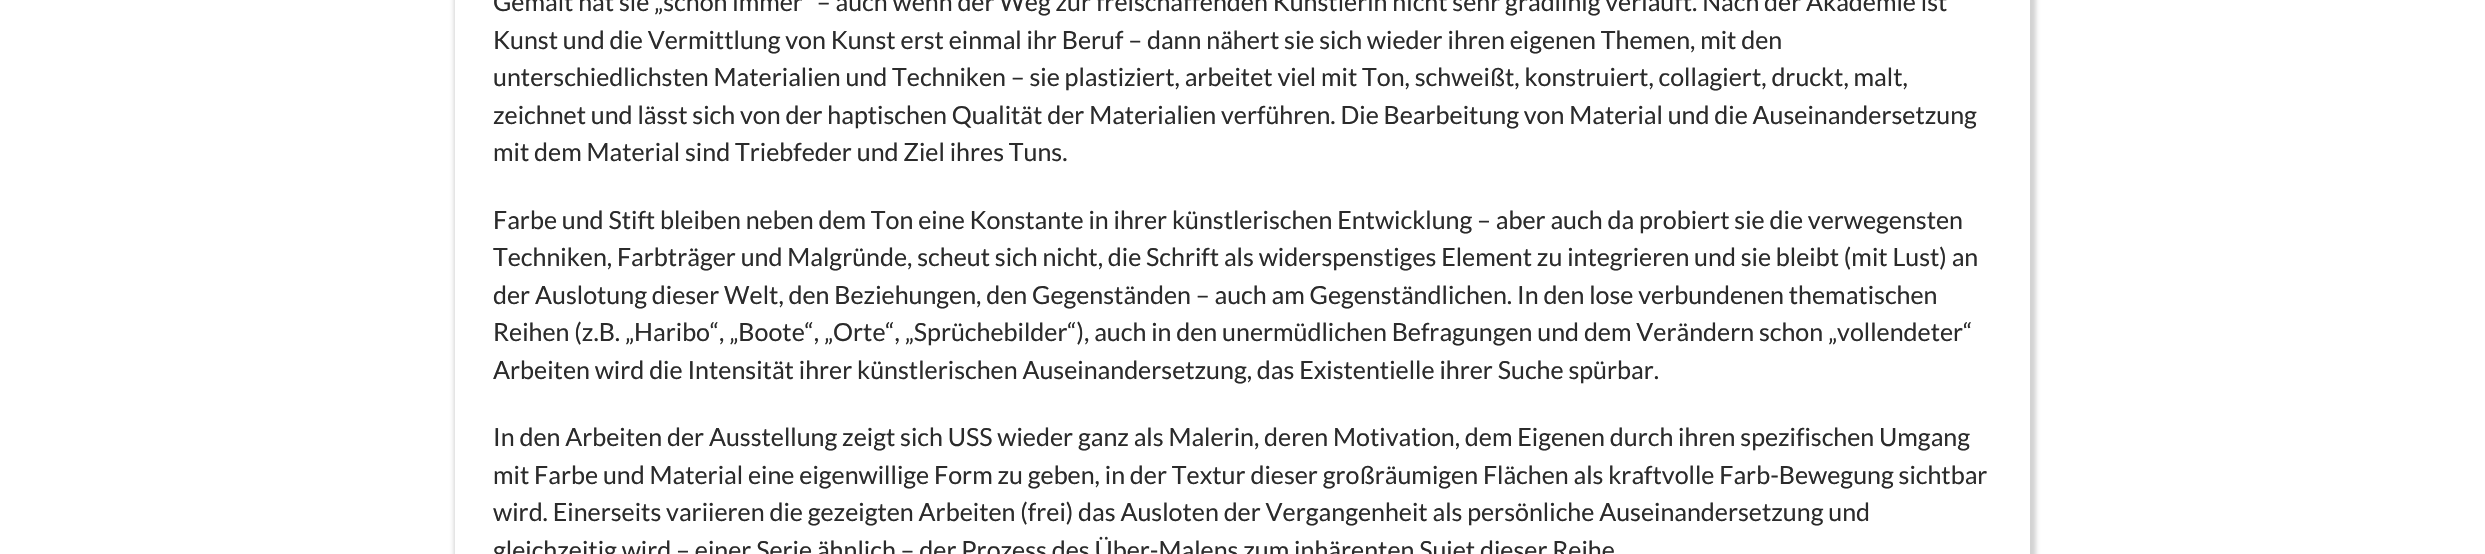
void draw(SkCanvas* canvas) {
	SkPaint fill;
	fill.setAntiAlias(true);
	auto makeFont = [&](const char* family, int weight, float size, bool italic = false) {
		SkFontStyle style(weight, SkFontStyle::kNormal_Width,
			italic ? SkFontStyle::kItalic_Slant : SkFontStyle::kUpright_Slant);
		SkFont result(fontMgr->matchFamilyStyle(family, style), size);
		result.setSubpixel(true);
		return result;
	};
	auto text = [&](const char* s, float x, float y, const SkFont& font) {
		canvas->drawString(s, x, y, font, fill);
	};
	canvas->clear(0xFFFFFFFF);
	canvas->save();
	canvas->clipPath(SkPathBuilder(SkPathFillType::kEvenOdd).moveTo(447, 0).lineTo(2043, 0).lineTo(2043, 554).lineTo(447, 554).close().moveTo(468, -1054).lineTo(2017, -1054).cubicTo(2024, -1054, 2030, -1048, 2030, -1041).lineTo(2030, 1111).cubicTo(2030, 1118, 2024, 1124, 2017, 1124).lineTo(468, 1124).cubicTo(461, 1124, 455, 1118, 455, 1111).lineTo(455, -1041).cubicTo(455, -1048, 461, -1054, 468, -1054).close().detach(), true);
	fill.setColor(0xFFD3D3D3);
	fill.setMaskFilter(SkMaskFilter::MakeBlur(kNormal_SkBlurStyle, 2));
	canvas->drawRoundRect(SkRect::MakeLTRB(454, -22, 2036, 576), 16, 16, fill);
	fill.setMaskFilter(nullptr);
	canvas->restore();
	auto font1 = makeFont("Lato", 400, 25);
	fill.setColor(0xFF2B2B2B);
	text("Gemalt hat sie „schon immer“ – auch wenn der Weg zur freischaffenden Künstlerin nicht sehr gradlinig verläuft. Nach der Akademie ist", 493, 11, font1);
	text("Kunst und die Vermittlung von Kunst erst einmal ihr Beruf – dann nähert sie sich wieder ihren eigenen Themen, mit den", 493, 49, font1);
	text("unterschiedlichsten Materialien und Techniken – sie plastiziert, arbeitet viel mit Ton, schweißt, konstruiert, collagiert, druckt, malt,", 493, 86, font1);
	text("zeichnet und lässt sich von der haptischen Qualität der Materialien verführen. Die Bearbeitung von Material und die Auseinandersetzung", 493, 124, font1);
	text("mit dem Material sind Triebfeder und Ziel ihres Tuns.", 493, 161, font1);
	text("Farbe und Stift bleiben neben dem Ton eine Konstante in ihrer künstlerischen Entwicklung – aber auch da probiert sie die verwegensten", 493, 229, font1);
	text("Techniken, Farbträger und Malgründe, scheut sich nicht, die Schrift als widerspenstiges Element zu integrieren und sie bleibt (mit Lust) an", 493, 266, font1);
	text("der Auslotung dieser Welt, den Beziehungen, den Gegenständen – auch am Gegenständlichen. In den lose verbundenen thematischen", 493, 304, font1);
	text("Reihen (z.B. „Haribo“, „Boote“, „Orte“, „Sprüchebilder“), auch in den unermüdlichen Befragungen und dem Verändern schon „vollendeter“", 493, 341, font1);
	text("Arbeiten wird die Intensität ihrer künstlerischen Auseinandersetzung, das Existentielle ihrer Suche spürbar.", 493, 379, font1);
	text("In den Arbeiten der Ausstellung zeigt sich USS wieder ganz als Malerin, deren Motivation, dem Eigenen durch ihren spezifischen Umgang", 493, 446, font1);
	text("mit Farbe und Material eine eigenwillige Form zu geben, in der Textur dieser großräumigen Flächen als kraftvolle Farb-Bewegung sichtbar", 493, 484, font1);
	text("wird. Einerseits variieren die gezeigten Arbeiten (frei) das Ausloten der Vergangenheit als persönliche Auseinandersetzung und", 493, 521, font1);
	text("gleichzeitig wird – einer Serie ähnlich – der Prozess des Über-Malens zum inhärenten Sujet dieser Reihe", 493, 559, font1);
}
